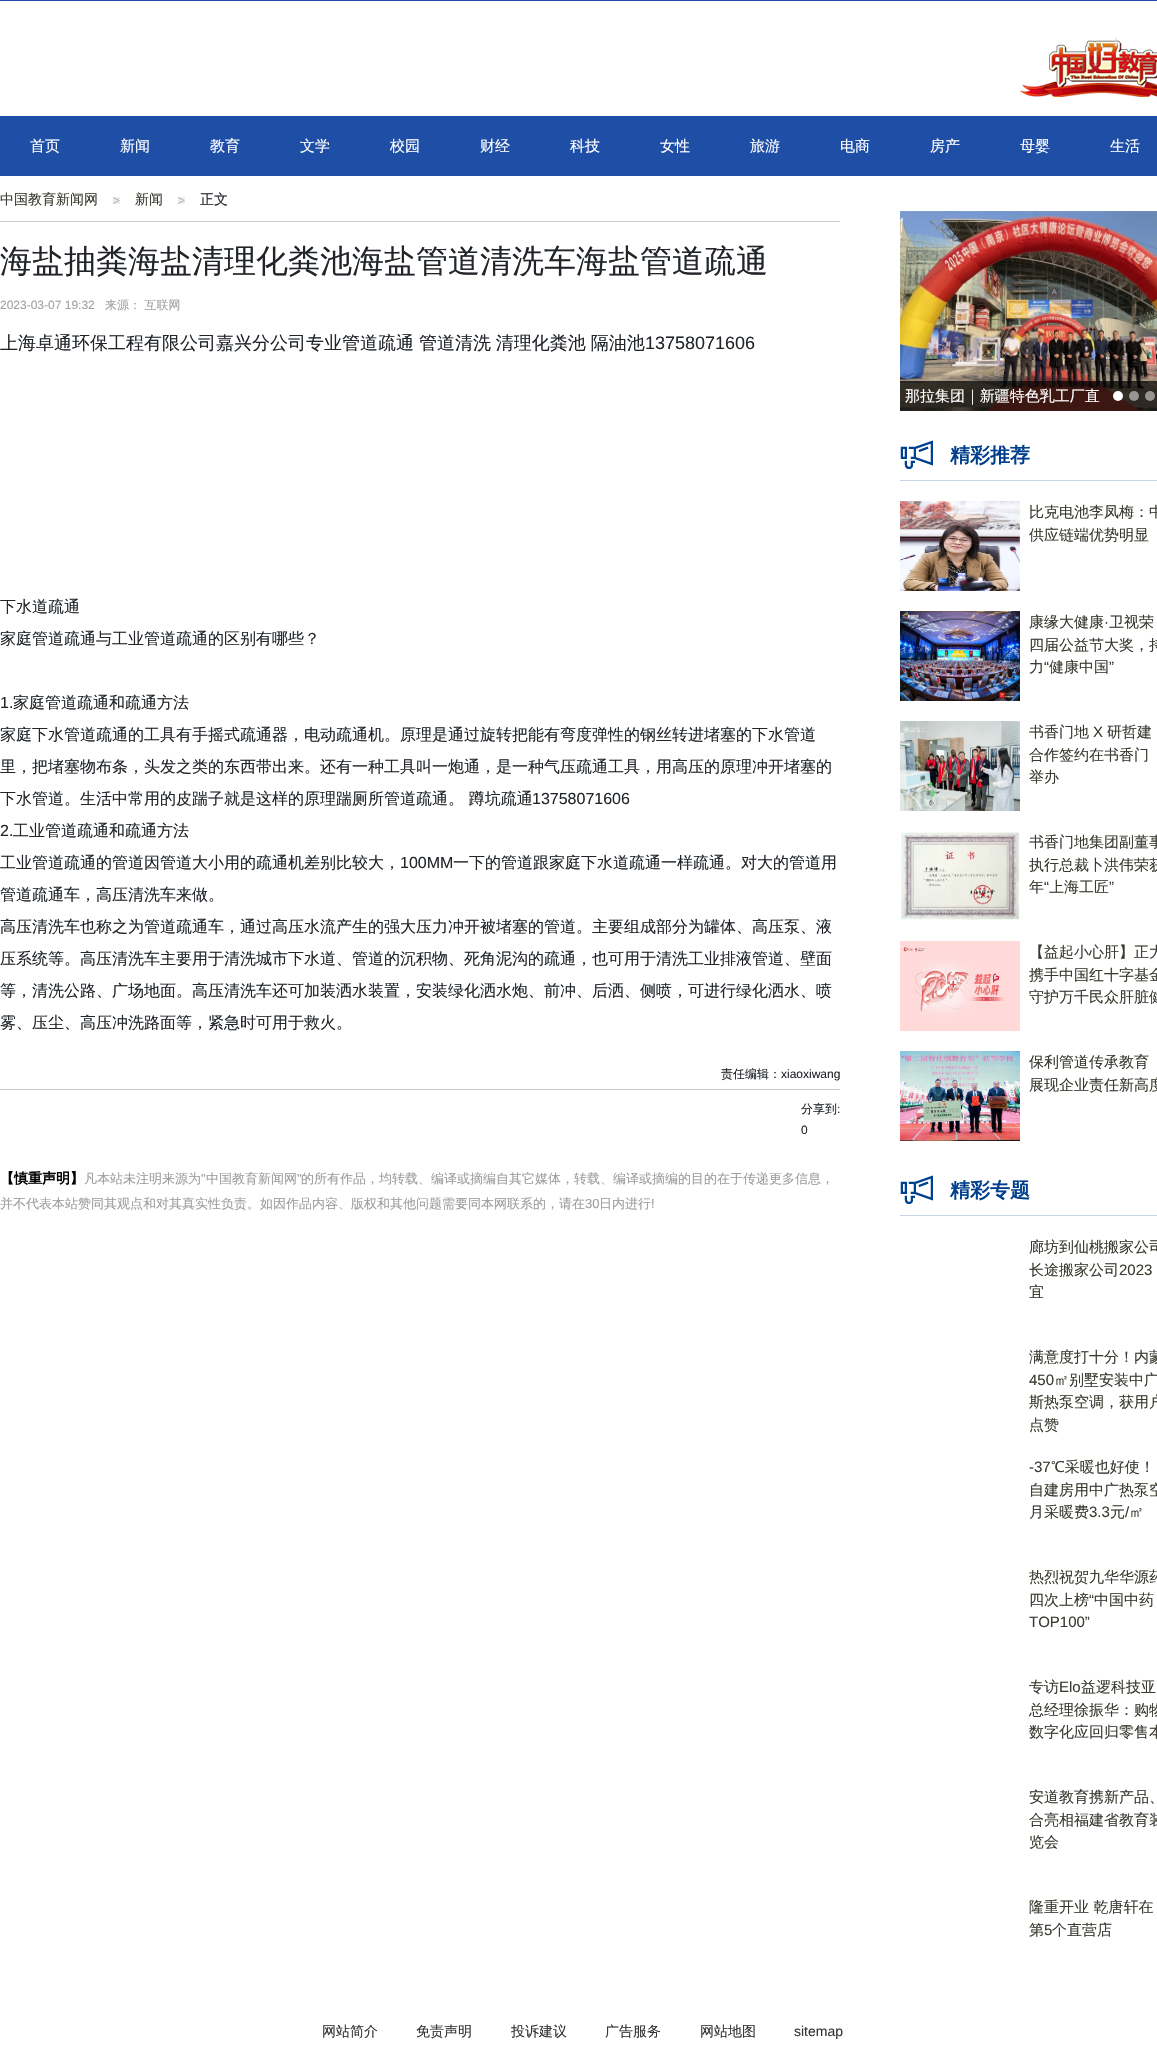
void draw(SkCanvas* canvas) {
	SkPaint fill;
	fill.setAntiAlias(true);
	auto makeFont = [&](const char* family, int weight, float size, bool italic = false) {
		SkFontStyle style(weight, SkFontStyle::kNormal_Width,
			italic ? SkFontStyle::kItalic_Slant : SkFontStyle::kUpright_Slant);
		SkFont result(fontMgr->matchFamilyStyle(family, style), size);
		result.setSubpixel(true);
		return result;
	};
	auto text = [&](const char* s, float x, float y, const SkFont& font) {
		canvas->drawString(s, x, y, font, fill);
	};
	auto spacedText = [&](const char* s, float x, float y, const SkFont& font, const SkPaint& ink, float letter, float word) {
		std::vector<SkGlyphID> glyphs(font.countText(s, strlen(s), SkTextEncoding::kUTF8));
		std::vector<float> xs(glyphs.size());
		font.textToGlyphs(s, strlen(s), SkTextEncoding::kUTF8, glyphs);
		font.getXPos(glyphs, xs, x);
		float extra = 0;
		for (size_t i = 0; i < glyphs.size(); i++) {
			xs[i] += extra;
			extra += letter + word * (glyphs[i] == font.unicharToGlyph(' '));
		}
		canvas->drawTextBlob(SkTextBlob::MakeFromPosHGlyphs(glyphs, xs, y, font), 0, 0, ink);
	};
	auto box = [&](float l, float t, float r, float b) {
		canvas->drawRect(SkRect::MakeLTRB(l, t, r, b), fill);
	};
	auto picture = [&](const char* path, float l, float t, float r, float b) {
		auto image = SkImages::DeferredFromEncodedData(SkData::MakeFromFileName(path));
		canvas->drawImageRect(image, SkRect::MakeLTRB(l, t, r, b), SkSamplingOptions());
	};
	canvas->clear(0xFFFFFFFF);
	fill.setColor(0xFF1E4EA6);
	box(0, 0, 1157, 1);
	picture("image0.png", 1020, 37, 1157, 97);
	box(0, 116, 1157, 176);
	fill.setColor(0xFFCCCCCC);
	box(0, 221, 840, 222);
	picture("image1.png", 113, 197, 120, 204);
	picture("image1.png", 178, 197, 185, 204);
	box(0, 1089, 840, 1090);
	picture("image2.png", 900, 211, 1157, 411);
	fill.setColor(0xB3000000);
	box(900, 381, 1157, 411);
	fill.setColor(0xFFFFFFFF);
	canvas->drawCircle(1118, 396, 5, fill);
	fill.setColor(0x80FFFFFF);
	canvas->drawCircle(1134, 396, 5, fill);
	canvas->drawCircle(1150, 396, 5, fill);
	picture("image3.png", 900, 440, 1157, 480);
	fill.setColor(0xFFC7D3E9);
	box(900, 480, 1157, 481);
	picture("image4.png", 900, 501, 1020, 591);
	picture("image5.png", 900, 611, 1020, 701);
	picture("image6.png", 900, 721, 1020, 811);
	picture("image7.png", 901, 832, 1020, 920);
	picture("image8.png", 900, 941, 1020, 1031);
	picture("image9.png", 900, 1051, 1020, 1141);
	picture("image3.png", 900, 1175, 1157, 1215);
	box(900, 1215, 1157, 1216);
	auto font1 = makeFont("WenQuanYi Zen Hei", 500, 15);
	fill.setColor(0xFFFFFFFF);
	text("首页", 30, 151, font1);
	text("新闻", 120, 151, font1);
	text("教育", 210, 151, font1);
	text("文学", 300, 151, font1);
	text("校园", 390, 151, font1);
	text("财经", 480, 151, font1);
	text("科技", 570, 151, font1);
	text("女性", 660, 151, font1);
	text("旅游", 750, 151, font1);
	text("电商", 840, 151, font1);
	text("房产", 930, 151, font1);
	text("母婴", 1020, 151, font1);
	text("生活", 1110, 151, font1);
	auto font2 = makeFont("WenQuanYi Zen Hei", 500, 14);
	fill.setColor(0xFF3A3A31);
	text("中国教育新闻网", 0, 204, font2);
	text("新闻", 135, 204, font2);
	fill.setColor(0xFF212529);
	text("正文", 200, 204, font2);
	auto font3 = makeFont("WenQuanYi Zen Hei", 500, 32);
	text("海盐抽粪海盐清理化粪池海盐管道清洗车海盐管道疏通", 0, 272, font3);
	auto font4 = makeFont("Liberation Sans", 400, 12);
	fill.setColor(0xFFA1A1A1);
	text("2023-03-07 19:32", 0, 309, font4);
	auto font5 = makeFont("WenQuanYi Zen Hei", 500, 12);
	text("来源： 互联网", 105, 309, font5);
	auto font6 = makeFont("WenQuanYi Zen Hei", 500, 18);
	fill.setColor(0xFF212529);
	spacedText("上海卓通环保工程有限公司嘉兴分公司专业管道疏通 管道清洗 清理化粪池 隔油池", 0, 349, font6, fill, 0, -0.5f);
	auto font7 = makeFont("Liberation Sans", 400, 18);
	text("13758071606", 645, 349, font7);
	auto font8 = makeFont("WenQuanYi Zen Hei", 500, 16);
	text("下水道疏通", 0, 612, font8);
	text("家庭管道疏通与工业管道疏通的区别有哪些？", 0, 644, font8);
	auto font9 = makeFont("Liberation Sans", 400, 16);
	text("1.", 0, 708, font9);
	text("家庭管道疏通和疏通方法", 13, 708, font8);
	text("家庭下水管道疏通的工具有手摇式疏通器，电动疏通机。原理是通过旋转把能有弯度弹性的钢丝转进堵塞的下水管道", 0, 740, font8);
	text("里，把堵塞物布条，头发之类的东西带出来。还有一种工具叫一炮通，是一种气压疏通工具，用高压的原理冲开堵塞的", 0, 772, font8);
	text("下水管道。生活中常用的皮踹子就是这样的原理踹厕所管道疏通。 蹲坑疏通", 0, 804, font8);
	text("13758071606", 532, 804, font9);
	text("2.", 0, 836, font9);
	text("工业管道疏通和疏通方法", 13, 836, font8);
	text("工业管道疏通的管道因管道大小用的疏通机差别比较大，", 0, 868, font8);
	text("100MM", 400, 868, font9);
	text("一下的管道跟家庭下水道疏通一样疏通。对大的管道用", 453, 868, font8);
	text("管道疏通车，高压清洗车来做。", 0, 900, font8);
	text("高压清洗车也称之为管道疏通车，通过高压水流产生的强大压力冲开被堵塞的管道。主要组成部分为罐体、高压泵、液", 0, 932, font8);
	text("压系统等。高压清洗车主要用于清洗城市下水道、管道的沉积物、死角泥沟的疏通，也可用于清洗工业排液管道、壁面", 0, 964, font8);
	text("等，清洗公路、广场地面。高压清洗车还可加装洒水装置，安装绿化洒水炮、前冲、后洒、侧喷，可进行绿化洒水、喷", 0, 996, font8);
	text("雾、压尘、高压冲洗路面等，紧急时可用于救火。", 0, 1028, font8);
	text("责任编辑：", 721, 1078, font5);
	text("xiaoxiwang", 781, 1078, font4);
	text("分享到", 801, 1113, font5);
	text(":", 837, 1113, font4);
	text("0", 801, 1134, font4);
	auto font10 = makeFont("WenQuanYi Zen Hei", 700, 14);
	fill.setColor(0xFF000000);
	text("【慎重声明】", 0, 1183, font10);
	auto font11 = makeFont("WenQuanYi Zen Hei", 500, 13);
	fill.setColor(0xFF9E9B9B);
	text("凡本站未注明来源为", 84, 1183, font11);
	auto font12 = makeFont("Liberation Sans", 400, 13);
	text("\"", 201, 1183, font12);
	text("中国教育新闻网", 206, 1183, font11);
	text("\"", 297, 1183, font12);
	text("的所有作品，均转载、编译或摘编自其它媒体，转载、编译或摘编的目的在于传递更多信息，", 301, 1183, font11);
	text("并不代表本站赞同其观点和对其真实性负责。如因作品内容、版权和其他问题需要同本网联系的，请在", 0, 1208, font11);
	text("30", 585, 1208, font12);
	text("日内进行", 599, 1208, font11);
	text("!", 651, 1208, font12);
	fill.setColor(0xFFFFFFFF);
	text("那拉集团｜新疆特色乳工厂直", 905, 401, font1);
	auto font13 = makeFont("WenQuanYi Zen Hei", 700, 20);
	fill.setColor(0xFF003F8D);
	text("精彩推荐", 950, 462, font13);
	fill.setColor(0xFF3A3A31);
	text("比克电池李凤梅：中", 1029, 517, font1);
	text("供应链端优势明显", 1029, 540, font1);
	text("康缘大健康", 1029, 627, font1);
	auto font14 = makeFont("Liberation Sans", 400, 15);
	text("·", 1104, 627, font14);
	text("卫视荣", 1109, 627, font1);
	text("四届公益节大奖，持", 1029, 650, font1);
	text("力", 1029, 672, font1);
	text("“", 1044, 672, font14);
	text("健康中国", 1049, 672, font1);
	text("”", 1109, 672, font14);
	text("书香门地", 1029, 737, font1);
	text("X", 1093, 737, font14);
	text("研哲建", 1107, 737, font1);
	text("合作签约在书香门", 1029, 760, font1);
	text("举办", 1029, 782, font1);
	text("书香门地集团副董事", 1029, 847, font1);
	text("执行总裁卜洪伟荣获", 1029, 870, font1);
	text("年", 1029, 892, font1);
	text("“", 1044, 892, font14);
	text("上海工匠", 1049, 892, font1);
	text("”", 1109, 892, font14);
	text("【益起小心肝】正大", 1029, 957, font1);
	text("携手中国红十字基金", 1029, 980, font1);
	text("守护万千民众肝脏健", 1029, 1002, font1);
	text("保利管道传承教育", 1029, 1067, font1);
	text("展现企业责任新高度", 1029, 1090, font1);
	fill.setColor(0xFF003F8D);
	text("精彩专题", 950, 1197, font13);
	fill.setColor(0xFF3A3A31);
	text("廊坊到仙桃搬家公司", 1029, 1252, font1);
	text("长途搬家公司", 1029, 1275, font1);
	text("2023", 1119, 1275, font14);
	text("宜", 1029, 1297, font1);
	text("满意度打十分！内蒙", 1029, 1362, font1);
	text("450", 1029, 1385, font14);
	text("㎡别墅安装中广", 1054, 1385, font1);
	text("斯热泵空调，获用户", 1029, 1407, font1);
	text("点赞", 1029, 1430, font1);
	text("-37", 1029, 1472, font14);
	text("℃采暖也好使！", 1051, 1472, font1);
	text("自建房用中广热泵空", 1029, 1495, font1);
	text("月采暖费", 1029, 1517, font1);
	text("3.3", 1089, 1517, font14);
	text("元", 1110, 1517, font1);
	text("/", 1125, 1517, font14);
	text("㎡", 1129, 1517, font1);
	text("热烈祝贺九华华源药", 1029, 1582, font1);
	text("四次上榜", 1029, 1605, font1);
	text("“", 1089, 1605, font14);
	text("中国中药", 1094, 1605, font1);
	text("TOP100”", 1029, 1627, font14);
	text("专访", 1029, 1692, font1);
	text("Elo", 1059, 1692, font14);
	text("益逻科技亚", 1081, 1692, font1);
	text("总经理徐振华：购物", 1029, 1715, font1);
	text("数字化应回归零售本", 1029, 1737, font1);
	text("安道教育携新产品、", 1029, 1802, font1);
	text("合亮相福建省教育装", 1029, 1825, font1);
	text("览会", 1029, 1847, font1);
	text("隆重开业 乾唐轩在", 1029, 1912, font1);
	text("第", 1029, 1935, font1);
	text("5", 1044, 1935, font14);
	text("个直营店", 1052, 1935, font1);
	fill.setColor(0xFF333333);
	text("网站简介", 322, 2036, font2);
	text("免责声明", 416, 2036, font2);
	text("投诉建议", 511, 2036, font2);
	text("广告服务", 605, 2036, font2);
	text("网站地图", 700, 2036, font2);
	auto font15 = makeFont("Liberation Sans", 400, 14);
	text("sitemap", 794, 2036, font15);
}
